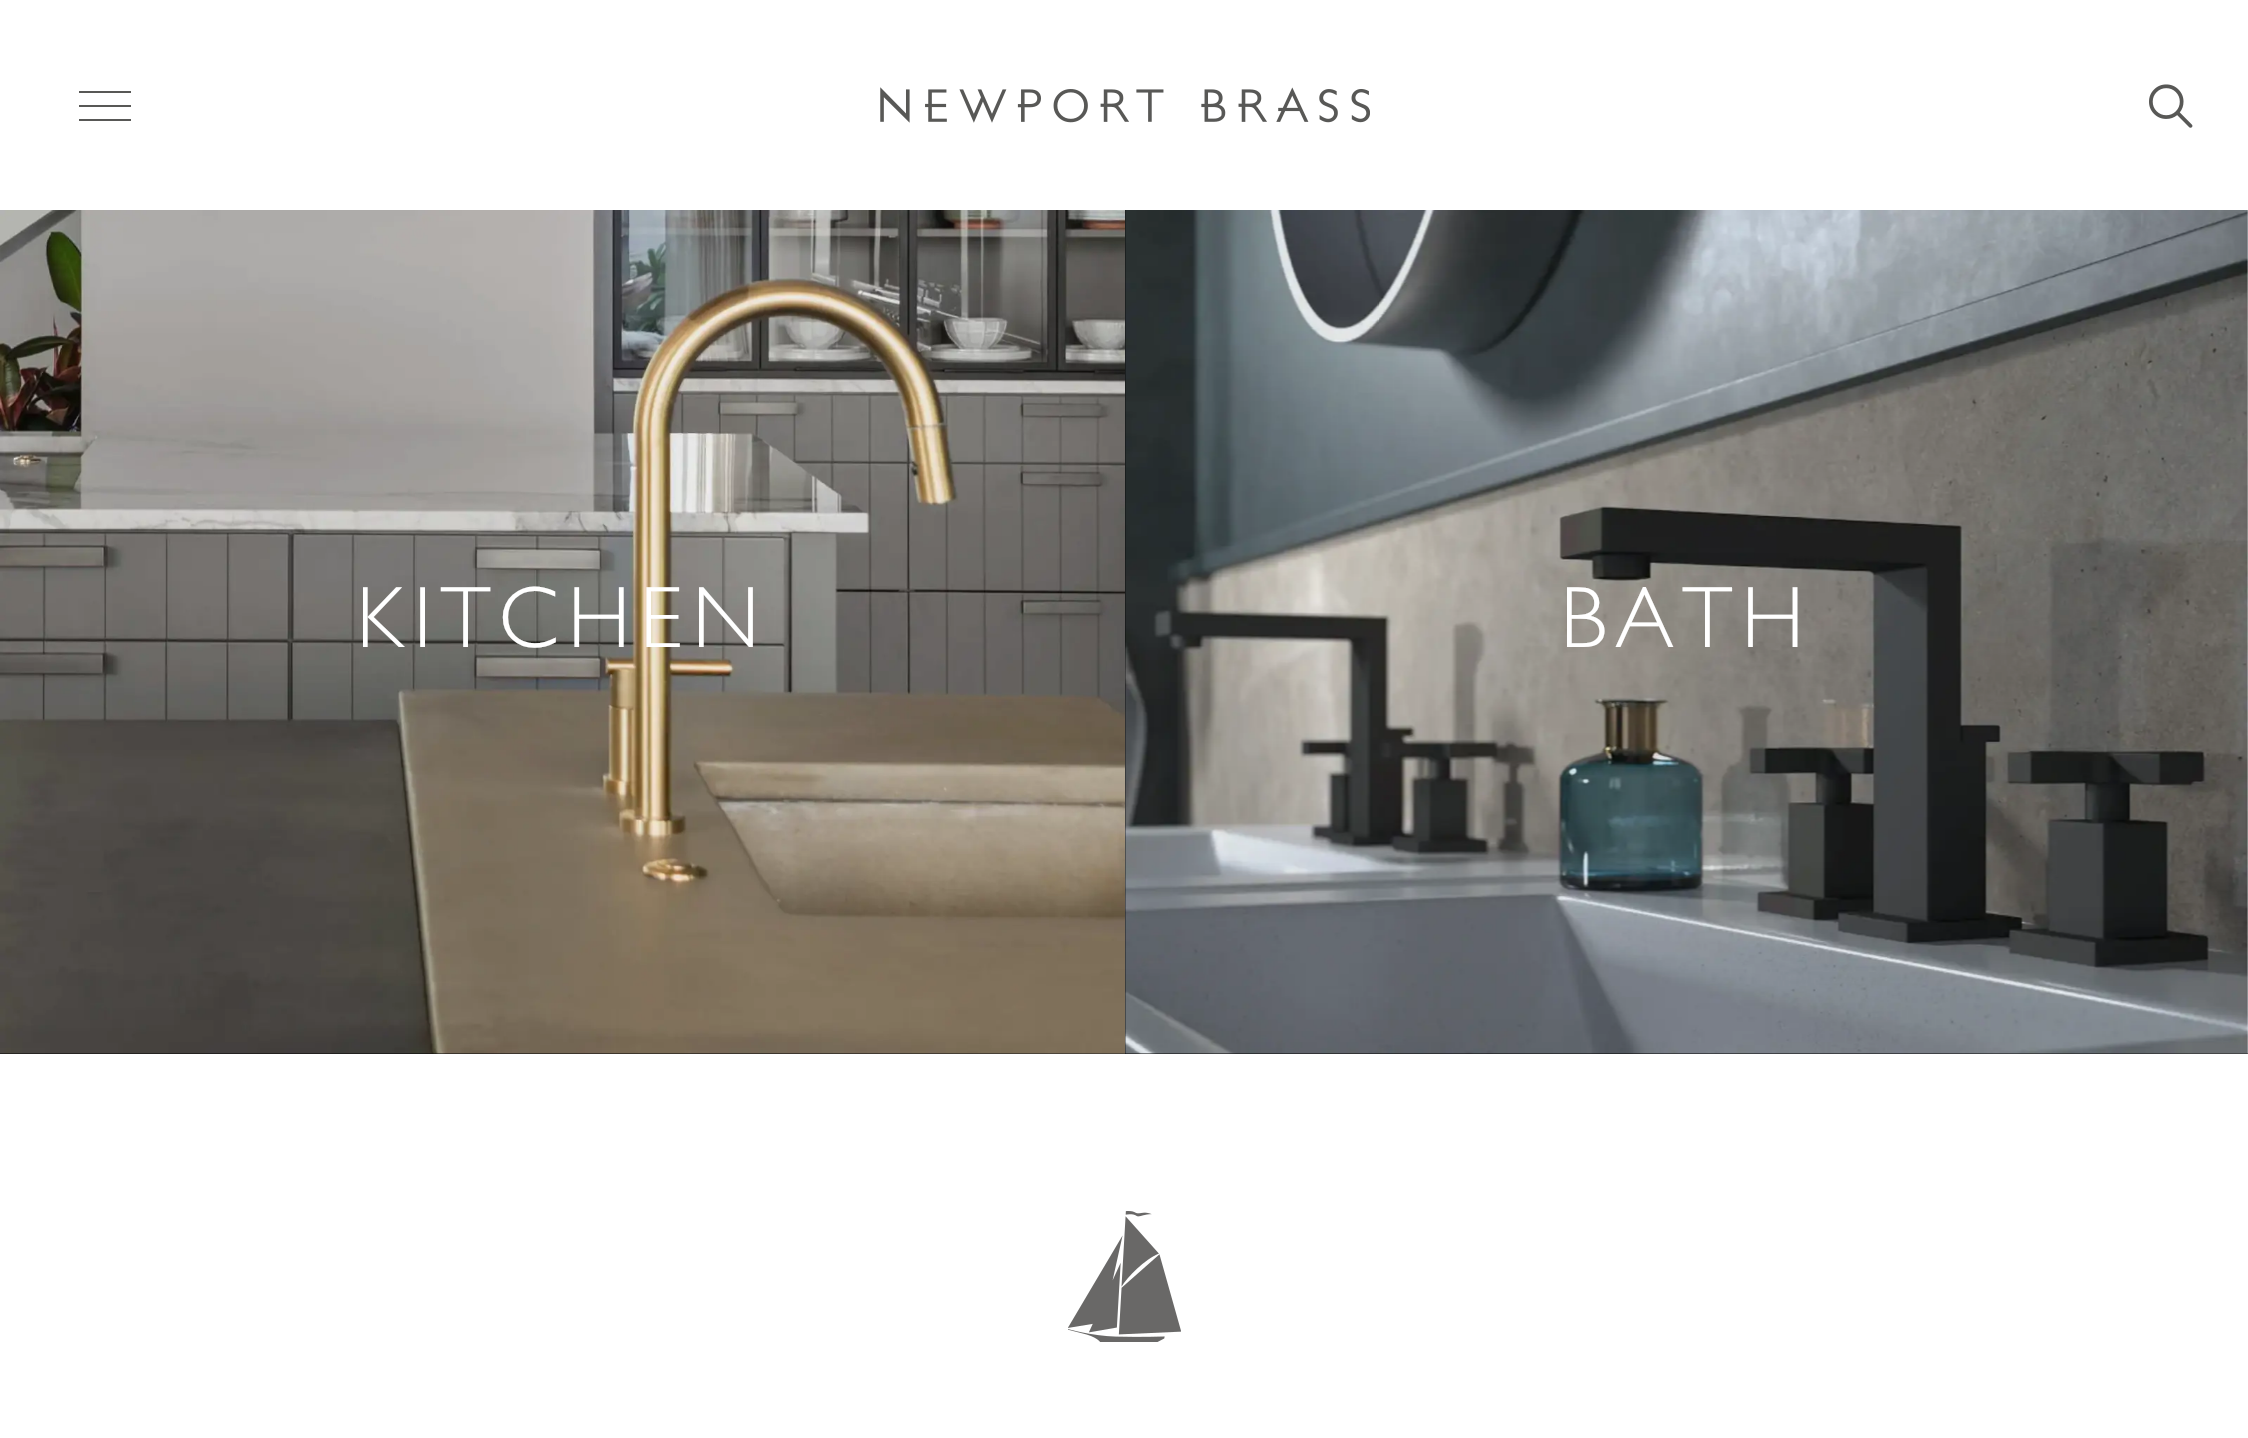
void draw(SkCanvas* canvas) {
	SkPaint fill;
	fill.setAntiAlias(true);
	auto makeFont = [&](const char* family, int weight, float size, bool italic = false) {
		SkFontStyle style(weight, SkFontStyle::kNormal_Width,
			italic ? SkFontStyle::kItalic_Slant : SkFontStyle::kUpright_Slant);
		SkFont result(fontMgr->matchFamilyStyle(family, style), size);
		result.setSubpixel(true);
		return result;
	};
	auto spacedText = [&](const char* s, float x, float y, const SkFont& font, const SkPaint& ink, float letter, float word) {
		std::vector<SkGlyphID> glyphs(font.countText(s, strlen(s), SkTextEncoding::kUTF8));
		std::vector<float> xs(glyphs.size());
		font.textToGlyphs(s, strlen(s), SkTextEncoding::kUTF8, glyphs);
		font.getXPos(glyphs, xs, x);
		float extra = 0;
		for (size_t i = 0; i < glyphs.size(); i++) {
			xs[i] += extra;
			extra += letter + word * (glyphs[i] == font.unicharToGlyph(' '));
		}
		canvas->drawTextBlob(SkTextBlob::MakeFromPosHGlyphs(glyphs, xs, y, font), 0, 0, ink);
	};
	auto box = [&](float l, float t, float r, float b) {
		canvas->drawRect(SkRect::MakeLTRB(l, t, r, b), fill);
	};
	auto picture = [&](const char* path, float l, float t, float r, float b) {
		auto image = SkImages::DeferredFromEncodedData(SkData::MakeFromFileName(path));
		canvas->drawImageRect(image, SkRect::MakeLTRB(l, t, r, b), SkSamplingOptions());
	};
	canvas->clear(0xFFFFFFFF);
	fill.setColor(0xFF585856);
	box(79, 105, 131, 107);
	box(79, 91, 131, 93);
	box(79, 119, 131, 121);
	picture("image0.png", 880, 87, 1370, 123);
	picture("image1.png", 2149, 84, 2193, 128);
	{
		const SkColor colors[] = {0xFF1A1A1A, 0xFFFFFFFF};
		const float stops[] = {0.38f, 1};
		const SkPoint ends[] = {{70, 1124}, {1055, 140}};
		fill.setShader(SkGradientShader::MakeLinear(ends, colors, stops, 2, SkTileMode::kClamp));
		fill.setAlpha(255);
	}
	box(0, 1053, 1125, 1054);
	{
		const SkColor colors[] = {0xE6000000, 0x00000000};
		const float stops[] = {0.38f, 1};
		const SkPoint ends[] = {{70, 1124}, {1055, 140}};
		fill.setShader(SkGradientShader::MakeLinear(ends, colors, stops, 2, SkTileMode::kClamp));
		fill.setAlpha(255);
	}
	box(0, 1053, 1125, 1054);
	picture("image2.png", 0, 210, 1126, 1054);
	{
		const SkColor colors[] = {0xE6000000, 0x00000000};
		const float stops[] = {0.38f, 1};
		const SkPoint ends[] = {{1195, 1124}, {2179, 140}};
		fill.setShader(SkGradientShader::MakeLinear(ends, colors, stops, 2, SkTileMode::kClamp));
		fill.setAlpha(255);
	}
	box(1125, 210, 2248, 1054);
	box(1125, 210, 2248, 1054);
	picture("image3.png", 1125, 210, 2248, 1054);
	picture("image4.png", 1068, 1211, 1181, 1342);
	auto font1 = makeFont("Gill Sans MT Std", 300, 87.5f);
	fill.setShader(nullptr);
	fill.setColor(0xFFFFFFFF);
	spacedText("KITCHEN", 356, 647, font1, fill, 8.75f, 0);
	spacedText("BATH", 1560, 647, font1, fill, 8.75f, 0);
}
